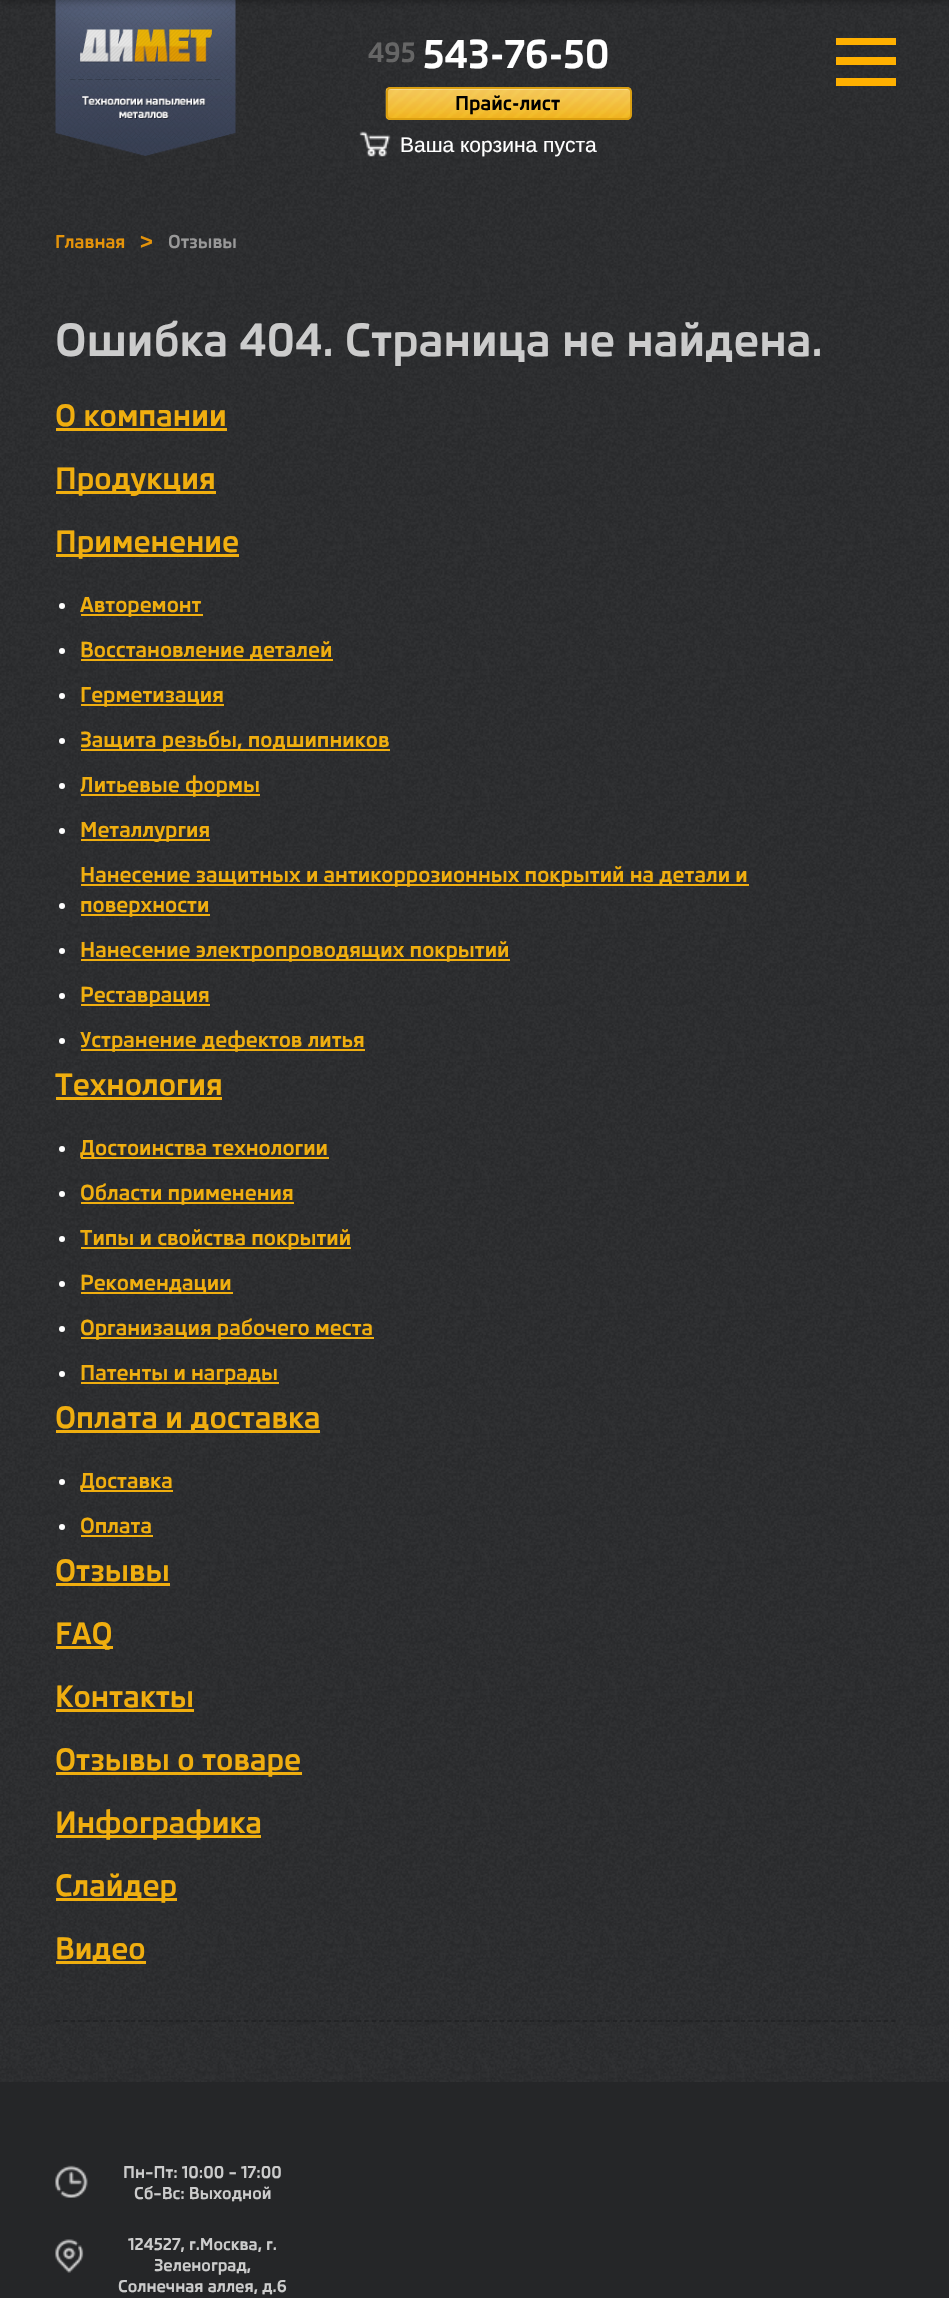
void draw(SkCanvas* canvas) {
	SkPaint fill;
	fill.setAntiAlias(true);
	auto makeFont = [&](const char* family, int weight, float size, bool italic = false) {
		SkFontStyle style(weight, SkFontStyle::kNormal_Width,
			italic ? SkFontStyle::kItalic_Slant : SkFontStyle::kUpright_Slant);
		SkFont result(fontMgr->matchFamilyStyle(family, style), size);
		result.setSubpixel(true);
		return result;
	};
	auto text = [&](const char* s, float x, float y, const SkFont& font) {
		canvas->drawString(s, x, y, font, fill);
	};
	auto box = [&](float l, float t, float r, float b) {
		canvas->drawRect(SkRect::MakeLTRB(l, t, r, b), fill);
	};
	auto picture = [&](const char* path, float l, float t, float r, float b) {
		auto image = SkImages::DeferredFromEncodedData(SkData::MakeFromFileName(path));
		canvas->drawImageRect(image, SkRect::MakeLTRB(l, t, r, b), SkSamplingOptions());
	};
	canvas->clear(0xFFFFFFFF);
	picture("image0.png", 0, 0, 949, 2082);
	picture("image1.png", 55, 0, 236, 156);
	fill.setColor(0x66000000);
	fill.setMaskFilter(SkMaskFilter::MakeBlur(kNormal_SkBlurStyle, 5));
	canvas->drawRect(SkRect::MakeLTRB(0, -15, 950, 0), fill);
	fill.setMaskFilter(nullptr);
	fill.setColor(0xFFFFB000);
	box(836, 38, 896, 45);
	box(836, 57, 896, 65);
	box(836, 78, 896, 86);
	picture("image2.png", 385, 87, 632, 120);
	fill.setColor(0x4DFFFFFF);
	canvas->drawPath(SkPathBuilder().moveTo(390, 90).lineTo(628, 90).lineTo(630, 91).lineTo(630, 93).cubicTo(630, 91, 629, 89, 627, 89).lineTo(390, 89).cubicTo(388, 89, 387, 91, 387, 93).cubicTo(387, 91, 388, 90, 390, 90).close().detach(), fill);
	fill.setStyle(SkPaint::kStroke_Style);
	fill.setStrokeWidth(2);
	fill.setColor(0xFFDBA011);
	canvas->drawRoundRect(SkRect::MakeLTRB(387, 88, 631, 119), 4, 4, fill);
	picture("image3.png", 359, 131, 391, 157);
	fill.setStrokeWidth(1.5f);
	fill.setColor(0xFF1F2022);
	fill.setPathEffect(SkDashPathEffect::Make({{4.5f, 3.03f}}, 0));
	canvas->drawPath(SkPathBuilder().moveTo(55.5f, 2021).lineTo(895.5f, 2021).detach(), fill);
	fill.setPathEffect(nullptr);
	fill.setStyle(SkPaint::kFill_Style);
	fill.setColor(0xFFF0AE0F);
	box(56, 428, 227, 431);
	box(56, 491, 216, 494);
	box(56, 554, 239, 557);
	fill.setColor(0xFFFFFFFF);
	canvas->drawCircle(62, 606, 3, fill);
	fill.setColor(0xFFF0AE0F);
	box(81, 614, 203, 616);
	fill.setColor(0xFFFFFFFF);
	canvas->drawCircle(62, 651, 3, fill);
	fill.setColor(0xFFF0AE0F);
	box(81, 659, 333, 661);
	fill.setColor(0xFFFFFFFF);
	canvas->drawCircle(62, 696, 3, fill);
	fill.setColor(0xFFF0AE0F);
	box(81, 704, 224, 706);
	fill.setColor(0xFFFFFFFF);
	canvas->drawCircle(62, 741, 3, fill);
	fill.setColor(0xFFF0AE0F);
	box(81, 749, 390, 751);
	fill.setColor(0xFFFFFFFF);
	canvas->drawCircle(62, 786, 3, fill);
	fill.setColor(0xFFF0AE0F);
	box(81, 794, 260, 796);
	fill.setColor(0xFFFFFFFF);
	canvas->drawCircle(62, 831, 3, fill);
	fill.setColor(0xFFF0AE0F);
	box(81, 839, 210, 841);
	fill.setColor(0xFFFFFFFF);
	canvas->drawCircle(62, 906, 3, fill);
	fill.setColor(0xFFF0AE0F);
	box(81, 884, 749, 886);
	box(81, 914, 210, 916);
	fill.setColor(0xFFFFFFFF);
	canvas->drawCircle(62, 951, 3, fill);
	fill.setColor(0xFFF0AE0F);
	box(81, 959, 510, 961);
	fill.setColor(0xFFFFFFFF);
	canvas->drawCircle(62, 996, 3, fill);
	fill.setColor(0xFFF0AE0F);
	box(81, 1004, 210, 1006);
	fill.setColor(0xFFFFFFFF);
	canvas->drawCircle(62, 1041, 3, fill);
	fill.setColor(0xFFF0AE0F);
	box(81, 1049, 365, 1051);
	box(56, 1097, 222, 1100);
	fill.setColor(0xFFFFFFFF);
	canvas->drawCircle(62, 1149, 3, fill);
	fill.setColor(0xFFF0AE0F);
	box(81, 1157, 329, 1159);
	fill.setColor(0xFFFFFFFF);
	canvas->drawCircle(62, 1194, 3, fill);
	fill.setColor(0xFFF0AE0F);
	box(81, 1202, 294, 1204);
	fill.setColor(0xFFFFFFFF);
	canvas->drawCircle(62, 1239, 3, fill);
	fill.setColor(0xFFF0AE0F);
	box(81, 1247, 351, 1249);
	fill.setColor(0xFFFFFFFF);
	canvas->drawCircle(62, 1284, 3, fill);
	fill.setColor(0xFFF0AE0F);
	box(81, 1292, 233, 1294);
	fill.setColor(0xFFFFFFFF);
	canvas->drawCircle(62, 1329, 3, fill);
	fill.setColor(0xFFF0AE0F);
	box(81, 1337, 374, 1339);
	fill.setColor(0xFFFFFFFF);
	canvas->drawCircle(62, 1374, 3, fill);
	fill.setColor(0xFFF0AE0F);
	box(81, 1382, 279, 1384);
	box(56, 1430, 320, 1433);
	fill.setColor(0xFFFFFFFF);
	canvas->drawCircle(62, 1482, 3, fill);
	fill.setColor(0xFFF0AE0F);
	box(81, 1490, 173, 1492);
	fill.setColor(0xFFFFFFFF);
	canvas->drawCircle(62, 1527, 3, fill);
	fill.setColor(0xFFF0AE0F);
	box(81, 1535, 153, 1537);
	box(56, 1583, 170, 1586);
	box(56, 1646, 113, 1649);
	box(56, 1709, 194, 1712);
	box(56, 1772, 302, 1775);
	box(56, 1835, 261, 1838);
	box(56, 1898, 177, 1901);
	box(56, 1961, 146, 1964);
	fill.setColor(0xFF252628);
	box(0, 2082, 949, 2298);
	picture("image4.png", 55, 2165, 88, 2198);
	picture("image5.png", 55, 2239, 84, 2273);
	auto font1 = makeFont("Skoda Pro", 700, 27);
	fill.setColor(0xFF666666);
	text("495", 368, 62, font1);
	auto font2 = makeFont("Skoda Pro", 700, 39);
	fill.setColor(0xFFFFFFFF);
	text("543-76-50", 423, 68, font2);
	auto font3 = makeFont("Skoda Pro", 700, 19.5f);
	fill.setColor(0xFF000000);
	text("Прайс-лист", 455, 110, font3);
	auto font4 = makeFont("Liberation Sans", 400, 21);
	fill.setColor(0xFFFFFFFF);
	text("Ваша корзина пуста", 400, 152, font4);
	auto font5 = makeFont("Skoda Pro", 700, 18);
	fill.setColor(0xFFE4930A);
	text("Главная", 55, 248, font5);
	auto font6 = makeFont("Liberation Sans", 700, 22);
	text(">", 140, 249, font6);
	fill.setColor(0xFF999999);
	text("Отзывы", 168, 248, font5);
	auto font7 = makeFont("Skoda Pro", 700, 45);
	fill.setColor(0xFFCCCCCC);
	text("Ошибка 404. Страница не найдена.", 55, 356, font7);
	auto font8 = makeFont("Skoda Pro", 700, 30);
	fill.setColor(0xFFF0AE0F);
	text("О компании", 55, 426, font8);
	text("Продукция", 55, 489, font8);
	text("Применение", 55, 552, font8);
	auto font9 = makeFont("Skoda Pro", 700, 21);
	text("Авторемонт", 80, 612, font9);
	text("Восстановление деталей", 80, 657, font9);
	text("Герметизация", 80, 702, font9);
	text("Защита резьбы, подшипников", 80, 747, font9);
	text("Литьевые формы", 80, 792, font9);
	text("Металлургия", 80, 837, font9);
	text("Нанесение защитных и антикоррозионных покрытий на детали и", 80, 882, font9);
	text("поверхности", 80, 912, font9);
	text("Нанесение электропроводящих покрытий", 80, 957, font9);
	text("Реставрация", 80, 1002, font9);
	text("Устранение дефектов литья", 80, 1047, font9);
	text("Технология", 55, 1095, font8);
	text("Достоинства технологии", 80, 1155, font9);
	text("Области применения", 80, 1200, font9);
	text("Типы и свойства покрытий", 80, 1245, font9);
	text("Рекомендации", 80, 1290, font9);
	text("Организация рабочего места", 80, 1335, font9);
	text("Патенты и награды", 80, 1380, font9);
	text("Оплата и доставка", 55, 1428, font8);
	text("Доставка", 80, 1488, font9);
	text("Оплата", 80, 1533, font9);
	text("Отзывы", 55, 1581, font8);
	text("FAQ", 55, 1644, font8);
	text("Контакты", 55, 1707, font8);
	text("Отзывы о товаре", 55, 1770, font8);
	text("Инфографика", 55, 1833, font8);
	text("Слайдер", 55, 1896, font8);
	text("Видео", 55, 1959, font8);
	auto font10 = makeFont("Skoda Pro", 700, 16.5f);
	fill.setColor(0xFFCCCCCC);
	text("Пн–Пт: 10:00 – 17:00", 123, 2178, font10);
	text("Сб–Вс: Выходной", 134, 2199, font10);
	text("124527, г.Москва, г.", 128, 2250, font10);
	text("Зеленоград,", 154, 2271, font10);
	text("Солнечная аллея, д.6", 118, 2292, font10);
}
